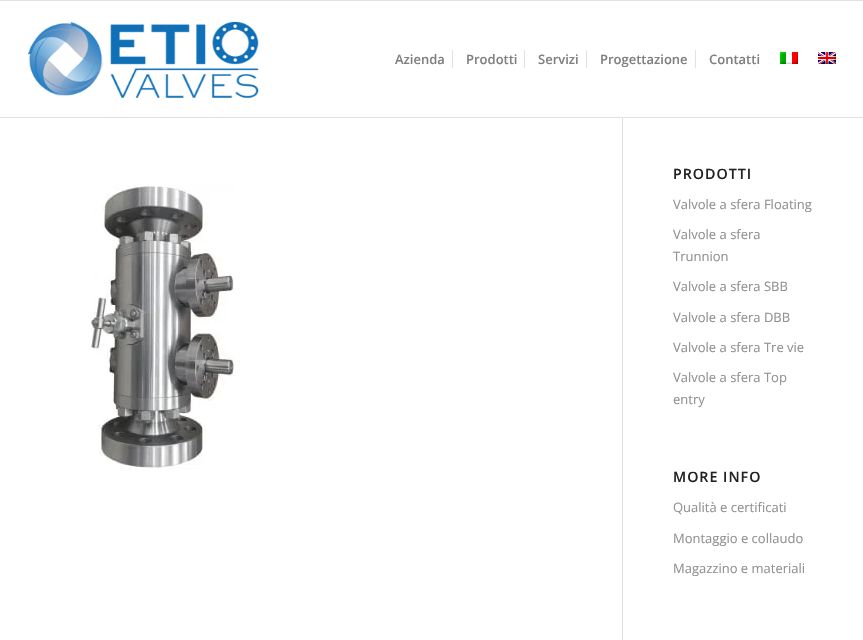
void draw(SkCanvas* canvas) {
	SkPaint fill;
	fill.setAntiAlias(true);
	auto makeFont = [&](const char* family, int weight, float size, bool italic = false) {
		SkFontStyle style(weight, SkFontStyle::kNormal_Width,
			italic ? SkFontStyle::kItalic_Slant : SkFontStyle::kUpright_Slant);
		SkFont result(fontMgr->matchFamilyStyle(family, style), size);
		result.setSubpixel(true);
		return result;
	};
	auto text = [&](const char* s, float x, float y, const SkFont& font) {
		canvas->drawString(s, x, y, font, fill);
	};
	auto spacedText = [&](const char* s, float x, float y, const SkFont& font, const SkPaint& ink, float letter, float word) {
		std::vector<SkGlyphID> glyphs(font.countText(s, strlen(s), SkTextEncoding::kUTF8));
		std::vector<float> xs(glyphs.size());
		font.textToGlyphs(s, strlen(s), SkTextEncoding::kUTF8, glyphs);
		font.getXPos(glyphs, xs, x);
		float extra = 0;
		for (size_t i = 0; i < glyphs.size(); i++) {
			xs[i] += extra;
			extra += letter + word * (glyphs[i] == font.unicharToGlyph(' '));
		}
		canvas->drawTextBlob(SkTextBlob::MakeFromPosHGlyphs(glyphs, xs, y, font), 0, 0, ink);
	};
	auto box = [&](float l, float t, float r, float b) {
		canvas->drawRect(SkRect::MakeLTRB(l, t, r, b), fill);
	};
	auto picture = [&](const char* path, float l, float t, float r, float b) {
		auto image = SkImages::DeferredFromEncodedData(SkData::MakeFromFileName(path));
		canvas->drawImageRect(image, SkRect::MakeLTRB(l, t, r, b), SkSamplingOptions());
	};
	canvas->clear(0xFFFFFFFF);
	fill.setColor(0xFFE1E1E1);
	box(0, 0, 863, 1);
	box(622, 116, 623, 640);
	box(0, 117, 863, 118);
	picture("image0.png", 28, 21, 259, 98);
	box(452, 50, 453, 68);
	box(524, 50, 525, 68);
	box(586, 50, 587, 68);
	box(695, 50, 696, 68);
	picture("image1.png", 780, 52, 798, 64);
	picture("image2.png", 818, 52, 836, 64);
	fill.setColor(0xFFFFFFFF);
	box(622, 116, 623, 117);
	picture("image3.png", 90, 185, 234, 471);
	auto font1 = makeFont("Open Sans", 600, 13);
	fill.setColor(0xFF808080);
	text("Azienda", 395, 64, font1);
	text("Prodotti", 466, 64, font1);
	text("Servizi", 538, 64, font1);
	text("Progettazione", 600, 64, font1);
	text("Contatti", 709, 64, font1);
	auto font2 = makeFont("Open Sans", 600, 14.25f);
	fill.setColor(0xFF222222);
	spacedText("PRODOTTI", 673, 179, font2, fill, 1, 0);
	auto font3 = makeFont("Open Sans", 400, 13);
	fill.setColor(0xFF919191);
	text("Valvole a sfera Floating", 673, 209, font3);
	text("Valvole a sfera", 673, 239, font3);
	text("Trunnion", 673, 261, font3);
	text("Valvole a sfera SBB", 673, 291, font3);
	text("Valvole a sfera DBB", 673, 322, font3);
	text("Valvole a sfera Tre vie", 673, 352, font3);
	text("Valvole a sfera Top", 673, 382, font3);
	text("entry", 673, 404, font3);
	fill.setColor(0xFF222222);
	spacedText("MORE INFO", 673, 482, font2, fill, 1, 0);
	fill.setColor(0xFF919191);
	text("Qualità e certificati", 673, 512, font3);
	text("Montaggio e collaudo", 673, 543, font3);
	text("Magazzino e materiali", 673, 573, font3);
}
